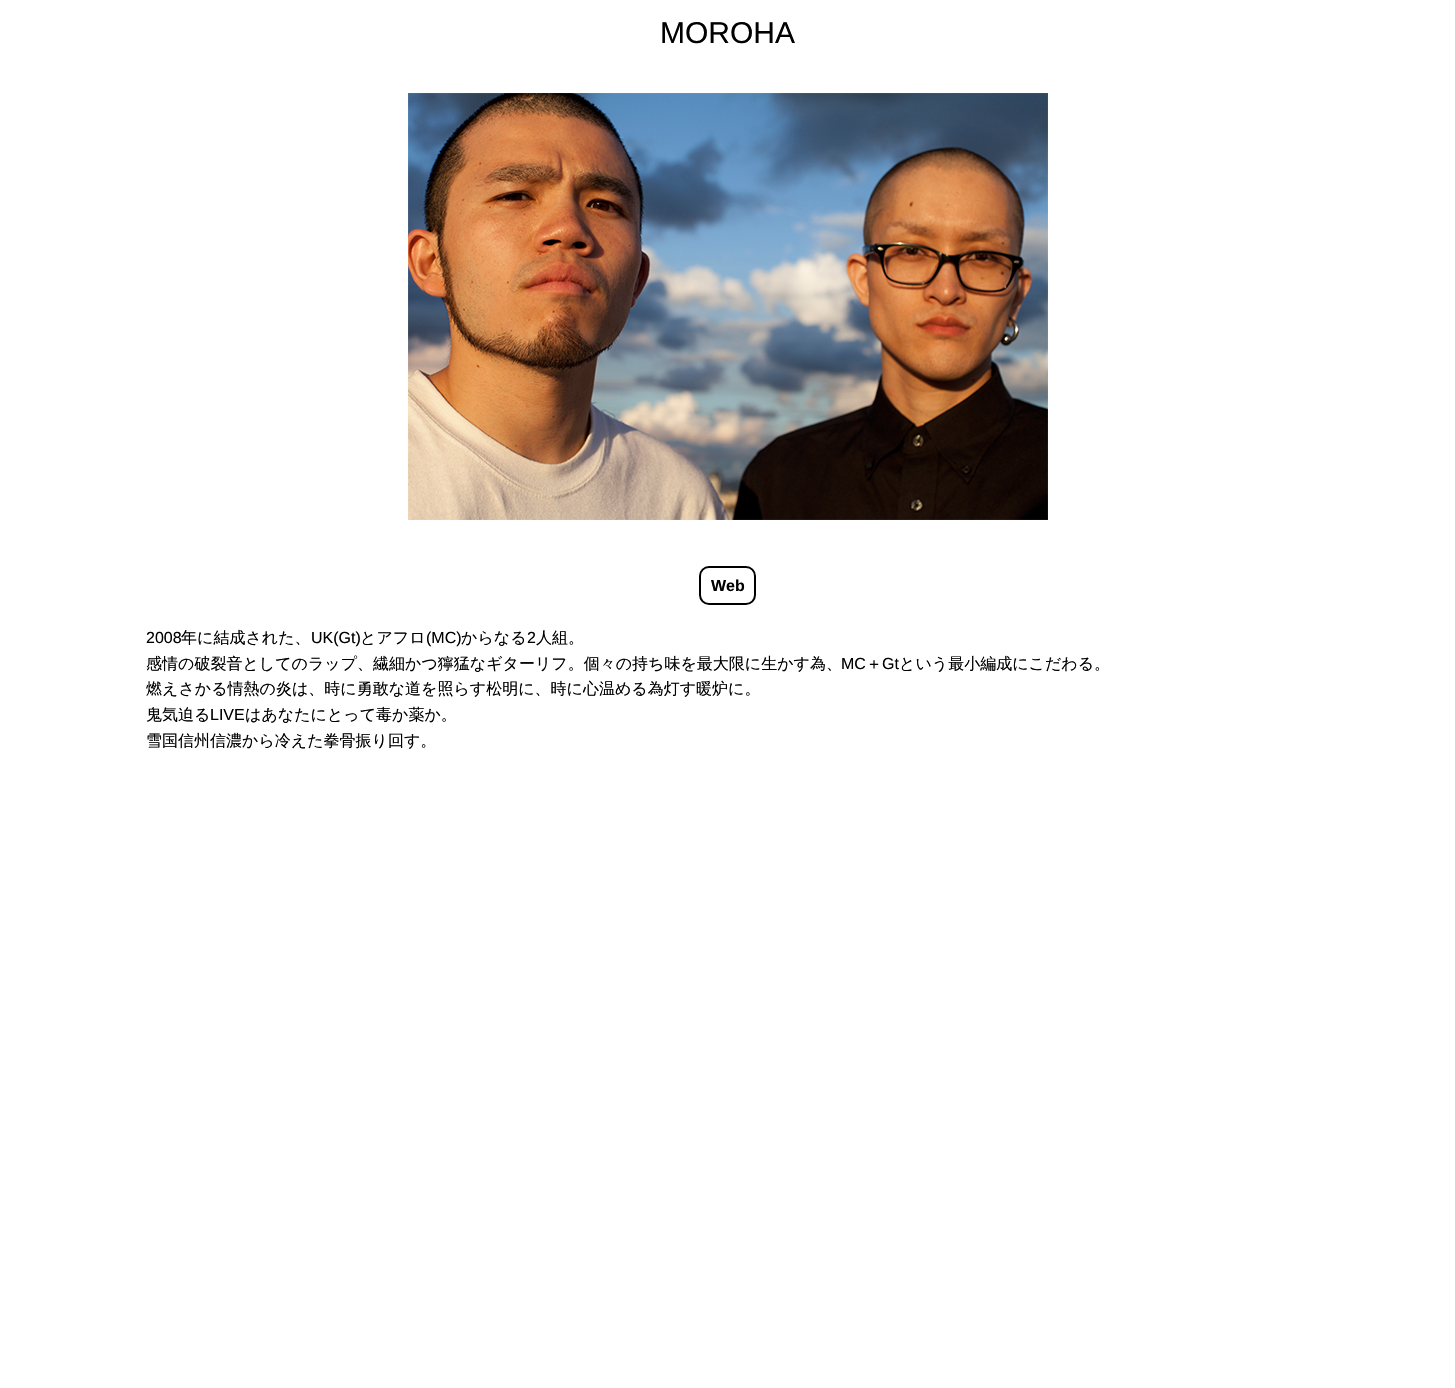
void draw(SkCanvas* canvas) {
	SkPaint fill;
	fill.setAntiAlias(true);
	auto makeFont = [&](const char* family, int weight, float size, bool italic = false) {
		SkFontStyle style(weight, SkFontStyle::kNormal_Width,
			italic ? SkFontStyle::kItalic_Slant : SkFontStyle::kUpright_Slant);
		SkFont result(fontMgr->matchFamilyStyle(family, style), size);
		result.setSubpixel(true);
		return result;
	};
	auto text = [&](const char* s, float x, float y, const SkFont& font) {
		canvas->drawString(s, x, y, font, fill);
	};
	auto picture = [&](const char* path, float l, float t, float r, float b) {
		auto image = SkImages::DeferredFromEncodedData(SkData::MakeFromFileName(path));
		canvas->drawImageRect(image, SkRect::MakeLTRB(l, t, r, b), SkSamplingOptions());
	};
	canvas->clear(0xFFFFFFFF);
	picture("image0.png", 408, 92, 1048, 520);
	fill.setStyle(SkPaint::kStroke_Style);
	fill.setStrokeWidth(2);
	fill.setColor(0xFF000000);
	canvas->drawRoundRect(SkRect::MakeLTRB(700, 567, 755, 604), 9, 9, fill);
	auto font1 = makeFont("Liberation Sans", 400, 30);
	fill.setStyle(SkPaint::kFill_Style);
	text("MOROHA", 660, 43, font1);
	auto font2 = makeFont("Liberation Sans", 700, 16);
	text("Web", 711, 591, font2);
	auto font3 = makeFont("Liberation Sans", 400, 16);
	text("2008", 146, 643, font3);
	auto font4 = makeFont("WenQuanYi Zen Hei", 500, 16);
	text("年に結成された、", 181, 643, font4);
	text("UK(Gt)", 311, 643, font3);
	text("とアフロ", 360, 643, font4);
	text("(MC)", 426, 643, font3);
	text("からなる", 461, 643, font4);
	text("2", 527, 643, font3);
	text("人組。", 536, 643, font4);
	text("感情の破裂音としてのラップ、繊細かつ獰猛なギターリフ。個々の持ち味を最大限に生かす為、", 146, 669, font4);
	text("MC", 841, 669, font3);
	text("＋", 866, 669, font4);
	text("Gt", 882, 669, font3);
	text("という最小編成にこだわる。", 899, 669, font4);
	text("燃えさかる情熱の炎は、時に勇敢な道を照らす松明に、時に心温める為灯す暖炉に。", 146, 694, font4);
	text("鬼気迫る", 146, 720, font4);
	text("LIVE", 210, 720, font3);
	text("はあなたにとって毒か薬か。", 245, 720, font4);
	text("雪国信州信濃から冷えた拳骨振り回す。", 146, 746, font4);
}
